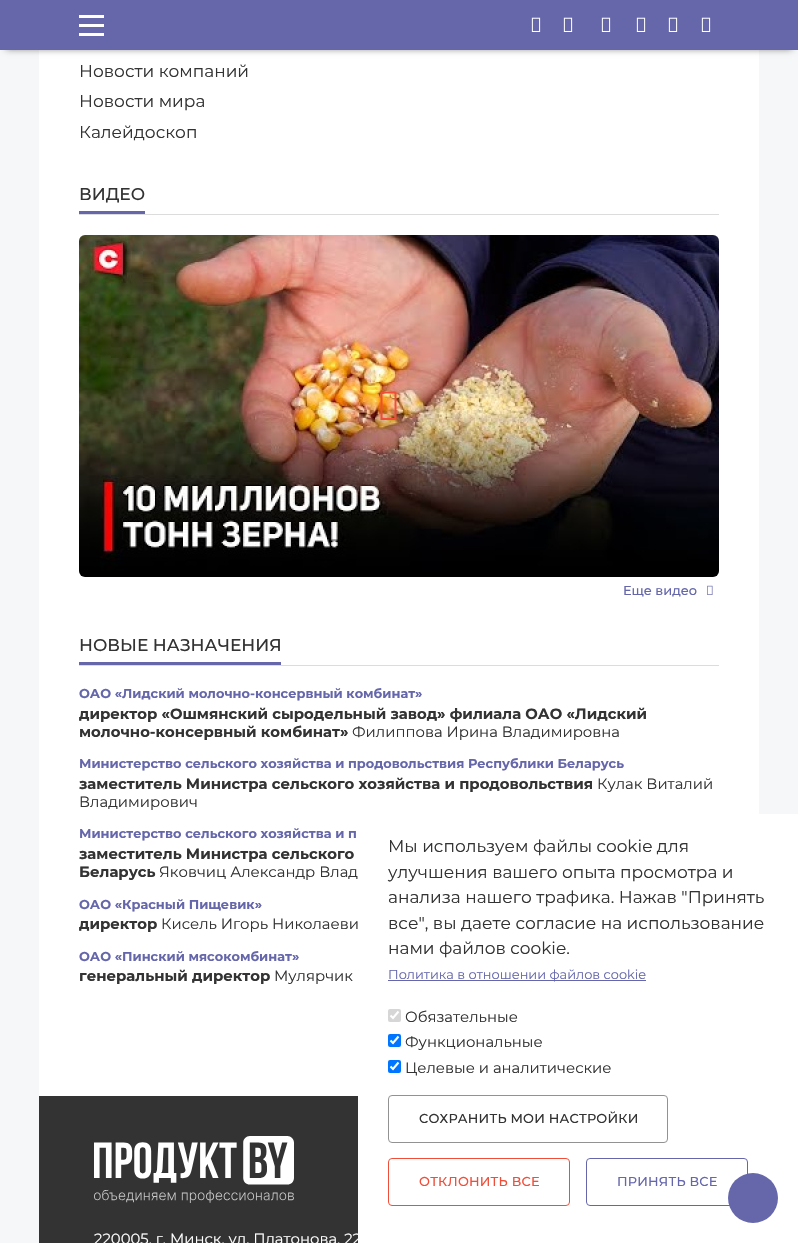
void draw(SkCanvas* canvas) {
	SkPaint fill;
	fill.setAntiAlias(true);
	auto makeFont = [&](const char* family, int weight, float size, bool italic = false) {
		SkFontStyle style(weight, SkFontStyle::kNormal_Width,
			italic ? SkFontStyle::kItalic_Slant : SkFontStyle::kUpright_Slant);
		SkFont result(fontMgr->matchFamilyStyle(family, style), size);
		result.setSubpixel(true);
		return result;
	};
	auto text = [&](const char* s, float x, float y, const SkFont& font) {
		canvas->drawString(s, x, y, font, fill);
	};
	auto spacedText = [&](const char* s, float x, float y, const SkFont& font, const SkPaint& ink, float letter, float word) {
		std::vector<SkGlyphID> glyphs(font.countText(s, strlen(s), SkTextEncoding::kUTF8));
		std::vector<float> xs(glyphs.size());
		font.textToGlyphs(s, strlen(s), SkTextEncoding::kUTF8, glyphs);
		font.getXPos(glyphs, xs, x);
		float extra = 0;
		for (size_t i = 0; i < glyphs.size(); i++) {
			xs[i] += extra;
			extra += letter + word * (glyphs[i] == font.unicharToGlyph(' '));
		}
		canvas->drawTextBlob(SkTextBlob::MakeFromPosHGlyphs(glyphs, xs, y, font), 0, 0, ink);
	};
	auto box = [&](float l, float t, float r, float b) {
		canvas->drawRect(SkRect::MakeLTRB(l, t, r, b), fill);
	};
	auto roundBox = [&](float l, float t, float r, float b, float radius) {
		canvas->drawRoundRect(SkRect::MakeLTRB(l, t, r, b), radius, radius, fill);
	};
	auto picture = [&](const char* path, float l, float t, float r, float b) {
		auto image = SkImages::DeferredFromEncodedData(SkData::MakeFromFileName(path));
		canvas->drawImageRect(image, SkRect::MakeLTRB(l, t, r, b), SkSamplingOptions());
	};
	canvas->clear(0xFFF6F7F8);
	fill.setColor(0xFFFFFFFF);
	box(39, 50, 759, 1096);
	fill.setColor(0x80000000);
	fill.setMaskFilter(SkMaskFilter::MakeBlur(kNormal_SkBlurStyle, 3.5f));
	canvas->drawRect(SkRect::MakeLTRB(6, 11, 792, 49), fill);
	fill.setMaskFilter(nullptr);
	fill.setColor(0xFF6667AB);
	box(0, 0, 798, 50);
	fill.setColor(0xFFFFFFFF);
	box(79, 15, 104, 18);
	box(79, 24, 104, 27);
	box(79, 33, 104, 36);
	picture("image0.png", 531, 17, 541, 32);
	picture("image0.png", 563, 17, 573, 32);
	picture("image0.png", 601, 17, 611, 32);
	picture("image0.png", 636, 17, 646, 32);
	picture("image0.png", 668, 17, 678, 32);
	picture("image0.png", 701, 17, 711, 32);
	fill.setColor(0xFFDCDCDC);
	box(79, 214, 719, 215);
	fill.setColor(0xFF6667AB);
	box(79, 211, 145, 214);
	picture("image1.png", 79, 235, 719, 577);
	fill.setColor(0xFFF04E39);
	canvas->drawPath(SkPathBuilder().moveTo(380.5f, 420).lineTo(380.5f, 391.5f).lineTo(396.5f, 391.5f).lineTo(396.5f, 420).close().moveTo(382.5f, 418).lineTo(394.5f, 418).lineTo(394.5f, 393.5f).lineTo(382.5f, 393.5f).close().detach(), fill);
	picture("image2.png", 707, 585, 713, 595);
	fill.setColor(0xFFDCDCDC);
	box(79, 665, 719, 666);
	fill.setColor(0xFF6667AB);
	box(79, 662, 281, 665);
	fill.setColor(0xFF333333);
	box(39, 1096, 358, 1243);
	picture("image3.png", 94, 1136, 294, 1203);
	fill.setColor(0xFFFFFFFF);
	box(358, 814, 798, 1243);
	fill.setColor(0xFF6667AB);
	box(388, 980, 646, 981);
	fill.setColor(0xFFD6D6D6);
	roundBox(388, 1009, 401, 1022, 2);
	fill.setStyle(SkPaint::kStroke_Style);
	fill.setStrokeWidth(2.1f);
	fill.setColor(0xFFFFFFFF);
	canvas->drawPath(SkPathBuilder().moveTo(390.5f, 1015.5f).lineTo(393, 1018).lineTo(398.5f, 1011.5f).detach(), fill);
	fill.setStyle(SkPaint::kFill_Style);
	fill.setColor(0xFF0075FF);
	roundBox(388, 1034, 401, 1047, 2);
	fill.setStyle(SkPaint::kStroke_Style);
	fill.setColor(0xFFFFFFFF);
	canvas->drawPath(SkPathBuilder().moveTo(390.5f, 1040.5f).lineTo(393, 1043).lineTo(398.5f, 1036.5f).detach(), fill);
	fill.setStyle(SkPaint::kFill_Style);
	fill.setColor(0xFF0075FF);
	roundBox(388, 1060, 401, 1073, 2);
	fill.setStyle(SkPaint::kStroke_Style);
	fill.setColor(0xFFFFFFFF);
	canvas->drawPath(SkPathBuilder().moveTo(390.5f, 1066.5f).lineTo(393, 1069).lineTo(398.5f, 1062.5f).detach(), fill);
	fill.setStrokeWidth(1);
	fill.setColor(0xFF929292);
	canvas->drawRoundRect(SkRect::MakeLTRB(388.5f, 1095.5f, 667.5f, 1142.5f), 3.5f, 3.5f, fill);
	fill.setColor(0xFFF04E39);
	canvas->drawRoundRect(SkRect::MakeLTRB(388.5f, 1158.5f, 569.5f, 1205.5f), 3.5f, 3.5f, fill);
	fill.setColor(0xFF6667AB);
	canvas->drawRoundRect(SkRect::MakeLTRB(586.5f, 1158.5f, 747.5f, 1205.5f), 3.5f, 3.5f, fill);
	fill.setStyle(SkPaint::kFill_Style);
	canvas->drawCircle(753, 1198, 25, fill);
	auto font1 = makeFont("Montserrat", 400, 17);
	fill.setColor(0xFF333333);
	text("Новости компаний", 79, 77, font1);
	text("Новости мира", 79, 107, font1);
	text("Калейдоскоп", 79, 138, font1);
	auto font2 = makeFont("Montserrat", 500, 17);
	text("ВИДЕО", 79, 200, font2);
	auto font3 = makeFont("Montserrat", 500, 12.9f);
	fill.setColor(0xFF6667AB);
	text("Еще видео", 623, 595, font3);
	fill.setColor(0xFF333333);
	text("НОВЫЕ НАЗНАЧЕНИЯ", 79, 651, font2);
	auto font4 = makeFont("Montserrat", 700, 12.9f);
	fill.setColor(0xFF6667AB);
	text("ОАО «Лидский молочно-консервный комбинат»", 79, 698, font4);
	auto font5 = makeFont("Montserrat", 700, 14.85f);
	fill.setColor(0xFF333333);
	text("директор «Ошмянский сыродельный завод» филиала ОАО «Лидский", 79, 719, font5);
	text("молочно-консервный комбинат»", 79, 737, font5);
	auto font6 = makeFont("Montserrat", 400, 14.85f);
	text("Филиппова Ирина Владимировна", 352, 737, font6);
	fill.setColor(0xFF6667AB);
	text("Министерство сельского хозяйства и продовольствия Республики Беларусь", 79, 768, font4);
	fill.setColor(0xFF333333);
	text("заместитель Министра сельского хозяйства и продовольствия", 79, 789, font5);
	text("Кулак Виталий", 597, 789, font6);
	text("Владимирович", 79, 807, font6);
	fill.setColor(0xFF6667AB);
	text("Министерство сельского хозяйства и п", 79, 838, font4);
	fill.setColor(0xFF333333);
	text("заместитель Министра сельского", 79, 859, font5);
	text("Беларусь", 79, 877, font5);
	text("Яковчиц Александр Влад", 159, 877, font6);
	fill.setColor(0xFF6667AB);
	text("ОАО «Красный Пищевик»", 79, 909, font4);
	fill.setColor(0xFF333333);
	text("директор", 79, 929, font5);
	text("Кисель Игорь Николаеви", 161, 929, font6);
	fill.setColor(0xFF6667AB);
	text("ОАО «Пинский мясокомбинат»", 79, 961, font4);
	fill.setColor(0xFF333333);
	text("генеральный директор", 79, 981, font5);
	text("Мулярчик", 274, 981, font6);
	fill.setColor(0xFFFFFFFF);
	text("220005, г. Минск, ул. Платонова, 22", 94, 1244, font6);
	fill.setColor(0xFF333333);
	text("Мы используем файлы cookie для", 388, 852, font1);
	text("улучшения вашего опыта просмотра и", 388, 878, font1);
	text("анализа нашего трафика. Нажав \"Принять", 388, 903, font1);
	text("все\", вы даете согласие на использование", 388, 929, font1);
	text("нами файлов cookie.", 388, 954, font1);
	auto font7 = makeFont("Montserrat", 400, 12.9f);
	fill.setColor(0xFF6667AB);
	text("Политика в отношении файлов cookie", 388, 979, font7);
	fill.setColor(0xFF333333);
	text("Обязательные", 405, 1022, font6);
	text("Функциональные", 405, 1047, font6);
	text("Целевые и аналитические", 405, 1073, font6);
	spacedText("СОХРАНИТЬ МОИ НАСТРОЙКИ", 419, 1123, font3, fill, 0.2f, 0);
	fill.setColor(0xFFF04E39);
	spacedText("ОТКЛОНИТЬ ВСЕ", 419, 1186, font3, fill, 0.2f, 0);
	fill.setColor(0xFF6667AB);
	spacedText("ПРИНЯТЬ ВСЕ", 617, 1186, font3, fill, 0.2f, 0);
}
